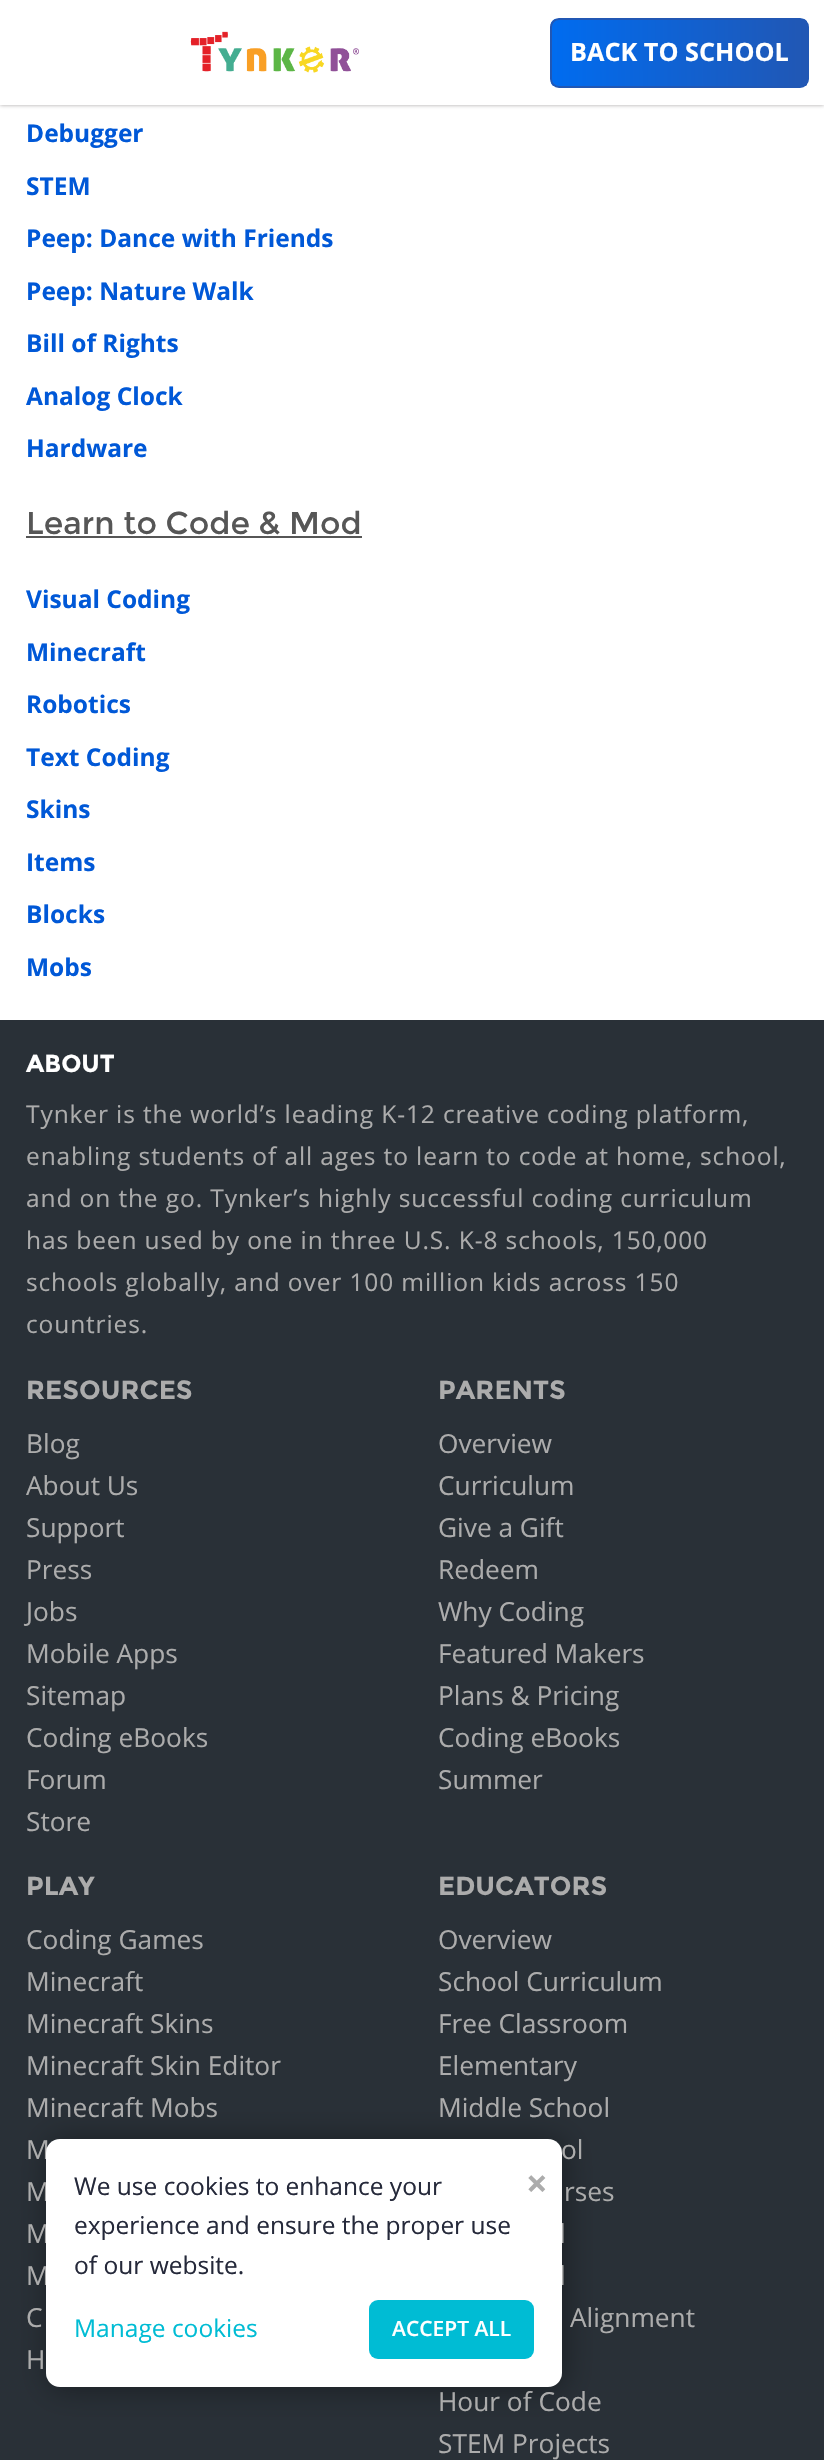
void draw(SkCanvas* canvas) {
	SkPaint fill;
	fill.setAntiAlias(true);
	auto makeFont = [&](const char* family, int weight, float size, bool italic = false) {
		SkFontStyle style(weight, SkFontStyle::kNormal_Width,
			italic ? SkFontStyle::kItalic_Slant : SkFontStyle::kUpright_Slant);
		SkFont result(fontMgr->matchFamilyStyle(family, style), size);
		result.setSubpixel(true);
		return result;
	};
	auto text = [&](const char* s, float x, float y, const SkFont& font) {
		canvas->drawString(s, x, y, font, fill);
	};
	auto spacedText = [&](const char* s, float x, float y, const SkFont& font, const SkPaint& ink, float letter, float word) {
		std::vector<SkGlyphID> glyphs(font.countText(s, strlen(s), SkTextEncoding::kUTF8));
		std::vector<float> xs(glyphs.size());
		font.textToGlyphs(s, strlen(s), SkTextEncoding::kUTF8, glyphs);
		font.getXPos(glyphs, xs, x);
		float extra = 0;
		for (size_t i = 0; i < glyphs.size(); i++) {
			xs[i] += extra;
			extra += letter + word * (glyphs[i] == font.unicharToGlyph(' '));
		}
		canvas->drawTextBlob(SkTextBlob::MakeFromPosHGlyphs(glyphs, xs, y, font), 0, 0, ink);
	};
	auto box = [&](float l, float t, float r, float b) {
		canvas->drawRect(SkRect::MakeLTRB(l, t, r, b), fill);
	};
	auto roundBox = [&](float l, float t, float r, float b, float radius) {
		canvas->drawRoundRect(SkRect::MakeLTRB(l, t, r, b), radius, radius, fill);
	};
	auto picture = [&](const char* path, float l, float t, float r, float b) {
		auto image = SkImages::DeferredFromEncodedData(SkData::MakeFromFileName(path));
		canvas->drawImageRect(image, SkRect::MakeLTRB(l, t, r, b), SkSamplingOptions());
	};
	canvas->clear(0xFFFFFFFF);
	fill.setColor(0x66221919);
	fill.setMaskFilter(SkMaskFilter::MakeBlur(kNormal_SkBlurStyle, 2));
	canvas->drawRect(SkRect::MakeLTRB(0, 0, 824, 105), fill);
	fill.setMaskFilter(nullptr);
	fill.setColor(0xFFFFFFFF);
	box(0, 0, 824, 105);
	picture("image0.png", 190, 31, 359, 73);
	canvas->save();
	canvas->clipPath(SkPathBuilder().moveTo(559, 18).lineTo(800, 18).cubicTo(805, 18, 809, 22, 809, 27).lineTo(809, 79).cubicTo(809, 84, 805, 88, 800, 88).lineTo(559, 88).cubicTo(554, 88, 550, 84, 550, 79).lineTo(550, 27).cubicTo(550, 22, 554, 18, 559, 18).close().detach(), true);
	{
		const SkColor colors[] = {0xFF006CF0, 0xFF2157B4};
		const float stops[] = {0, 1};
		const SkPoint ends[] = {{551, 53}, {807, 52}};
		fill.setShader(SkGradientShader::MakeLinear(ends, colors, stops, 2, SkTileMode::kClamp));
		fill.setAlpha(255);
	}
	box(551, 19, 807, 86);
	canvas->restore();
	fill.setStyle(SkPaint::kStroke_Style);
	fill.setStrokeWidth(2);
	fill.setShader(nullptr);
	fill.setColor(0xFF2157B4);
	canvas->drawRoundRect(SkRect::MakeLTRB(551, 19, 808, 87), 8, 8, fill);
	fill.setStyle(SkPaint::kFill_Style);
	fill.setColor(0xFF565656);
	box(26, 536, 362, 538);
	fill.setColor(0xFF293037);
	box(0, 1020, 824, 2460);
	fill.setColor(0x5E000000);
	fill.setMaskFilter(SkMaskFilter::MakeBlur(kNormal_SkBlurStyle, 15));
	canvas->drawRoundRect(SkRect::MakeLTRB(49, 2140, 565, 2389), 14, 14, fill);
	fill.setMaskFilter(nullptr);
	auto font1 = makeFont("Open Sans", 700, 25.25f);
	fill.setColor(0xFFFFFFFF);
	text("BACK TO SCHOOL", 570, 61, font1);
	auto font2 = makeFont("Open Sans", 700, 24.5f);
	fill.setColor(0xFF0058D7);
	text("Debugger", 26, 142, font2);
	text("STEM", 26, 195, font2);
	text("Peep: Dance with Friends", 26, 247, font2);
	text("Peep: Nature Walk", 26, 300, font2);
	text("Bill of Rights", 26, 352, font2);
	text("Analog Clock", 26, 405, font2);
	text("Hardware", 26, 457, font2);
	auto font3 = makeFont("Montserrat", 400, 31.5f);
	fill.setColor(0xFF565656);
	text("Learn to Code & Mod", 26, 534, font3);
	fill.setColor(0xFF0058D7);
	text("Visual Coding", 26, 608, font2);
	text("Minecraft", 26, 661, font2);
	text("Robotics", 26, 713, font2);
	text("Text Coding", 26, 766, font2);
	text("Skins", 26, 818, font2);
	text("Items", 26, 871, font2);
	text("Blocks", 26, 923, font2);
	text("Mobs", 26, 976, font2);
	auto font4 = makeFont("Montserrat", 700, 24.5f);
	fill.setColor(0xFFFFFFFF);
	text("ABOUT", 26, 1072, font4);
	auto font5 = makeFont("Open Sans", 400, 24.5f);
	fill.setColor(0xFFACACAC);
	spacedText("Tynker is the world’s leading K-12 creative coding platform,", 26, 1123, font5, fill, 0.88f, 0);
	spacedText("enabling students of all ages to learn to code at home, school,", 26, 1165, font5, fill, 0.88f, 0);
	spacedText("and on the go. Tynker’s highly successful coding curriculum", 26, 1207, font5, fill, 0.88f, 0);
	spacedText("has been used by one in three U.S. K-8 schools, 150,000", 26, 1249, font5, fill, 0.88f, 0);
	spacedText("schools globally, and over 100 million kids across 150", 26, 1291, font5, fill, 0.88f, 0);
	spacedText("countries.", 26, 1333, font5, fill, 0.88f, 0);
	auto font6 = makeFont("Montserrat", 700, 26.25f);
	text("RESOURCES", 26, 1399, font6);
	auto font7 = makeFont("Open Sans", 400, 26.25f);
	text("Blog", 26, 1453, font7);
	text("About Us", 26, 1495, font7);
	text("Support", 26, 1537, font7);
	text("Press", 26, 1579, font7);
	text("Jobs", 26, 1621, font7);
	text("Mobile Apps", 26, 1663, font7);
	text("Sitemap", 26, 1705, font7);
	text("Coding eBooks", 26, 1747, font7);
	text("Forum", 26, 1789, font7);
	text("Store", 26, 1831, font7);
	text("PARENTS", 438, 1399, font6);
	text("Overview", 438, 1453, font7);
	text("Curriculum", 438, 1495, font7);
	text("Give a Gift", 438, 1537, font7);
	text("Redeem", 438, 1579, font7);
	text("Why Coding", 438, 1621, font7);
	text("Featured Makers", 438, 1663, font7);
	text("Plans & Pricing", 438, 1705, font7);
	text("Coding eBooks", 438, 1747, font7);
	text("Summer", 438, 1789, font7);
	text("PLAY", 26, 1895, font6);
	text("Coding Games", 26, 1949, font7);
	text("Minecraft", 26, 1991, font7);
	text("Minecraft Skins", 26, 2033, font7);
	text("Minecraft Skin Editor", 26, 2075, font7);
	text("Minecraft Mobs", 26, 2117, font7);
	text("M", 26, 2159, font7);
	text("M", 26, 2201, font7);
	text("M", 26, 2243, font7);
	text("M", 26, 2285, font7);
	text("C", 26, 2327, font7);
	text("H", 26, 2369, font7);
	text("EDUCATORS", 438, 1895, font6);
	text("Overview", 438, 1949, font7);
	text("School Curriculum", 438, 1991, font7);
	text("Free Classroom", 438, 2033, font7);
	text("Elementary", 438, 2075, font7);
	text("Middle School", 438, 2117, font7);
	text("ol", 561, 2159, font7);
	text("rses", 564, 2201, font7);
	text("l", 559, 2243, font7);
	text("l", 559, 2285, font7);
	text("Alignment", 570, 2327, font7);
	text("Hour of Code", 438, 2411, font7);
	text("STEM Projects", 438, 2453, font7);
	fill.setColor(0xFFFFFFFF);
	roundBox(46, 2139, 562, 2387, 14);
	fill.setColor(0xFF25293A);
	text("We use cookies to enhance your", 74, 2195, font5);
	text("experience and ensure the proper use", 74, 2234, font5);
	text("of our website.", 74, 2274, font5);
	fill.setColor(0xFF00BCD4);
	text("Manage cookies", 74, 2337, font5);
	roundBox(369, 2300, 534, 2359, 9);
	auto font8 = makeFont("Open Sans", 600, 21);
	fill.setColor(0xFFFFFFFF);
	text("ACCEPT ALL", 392, 2336, font8);
	auto font9 = makeFont("Open Sans", 700, 38);
	fill.setColor(0xFFACACAC);
	text("×", 526, 2197, font9);
}
